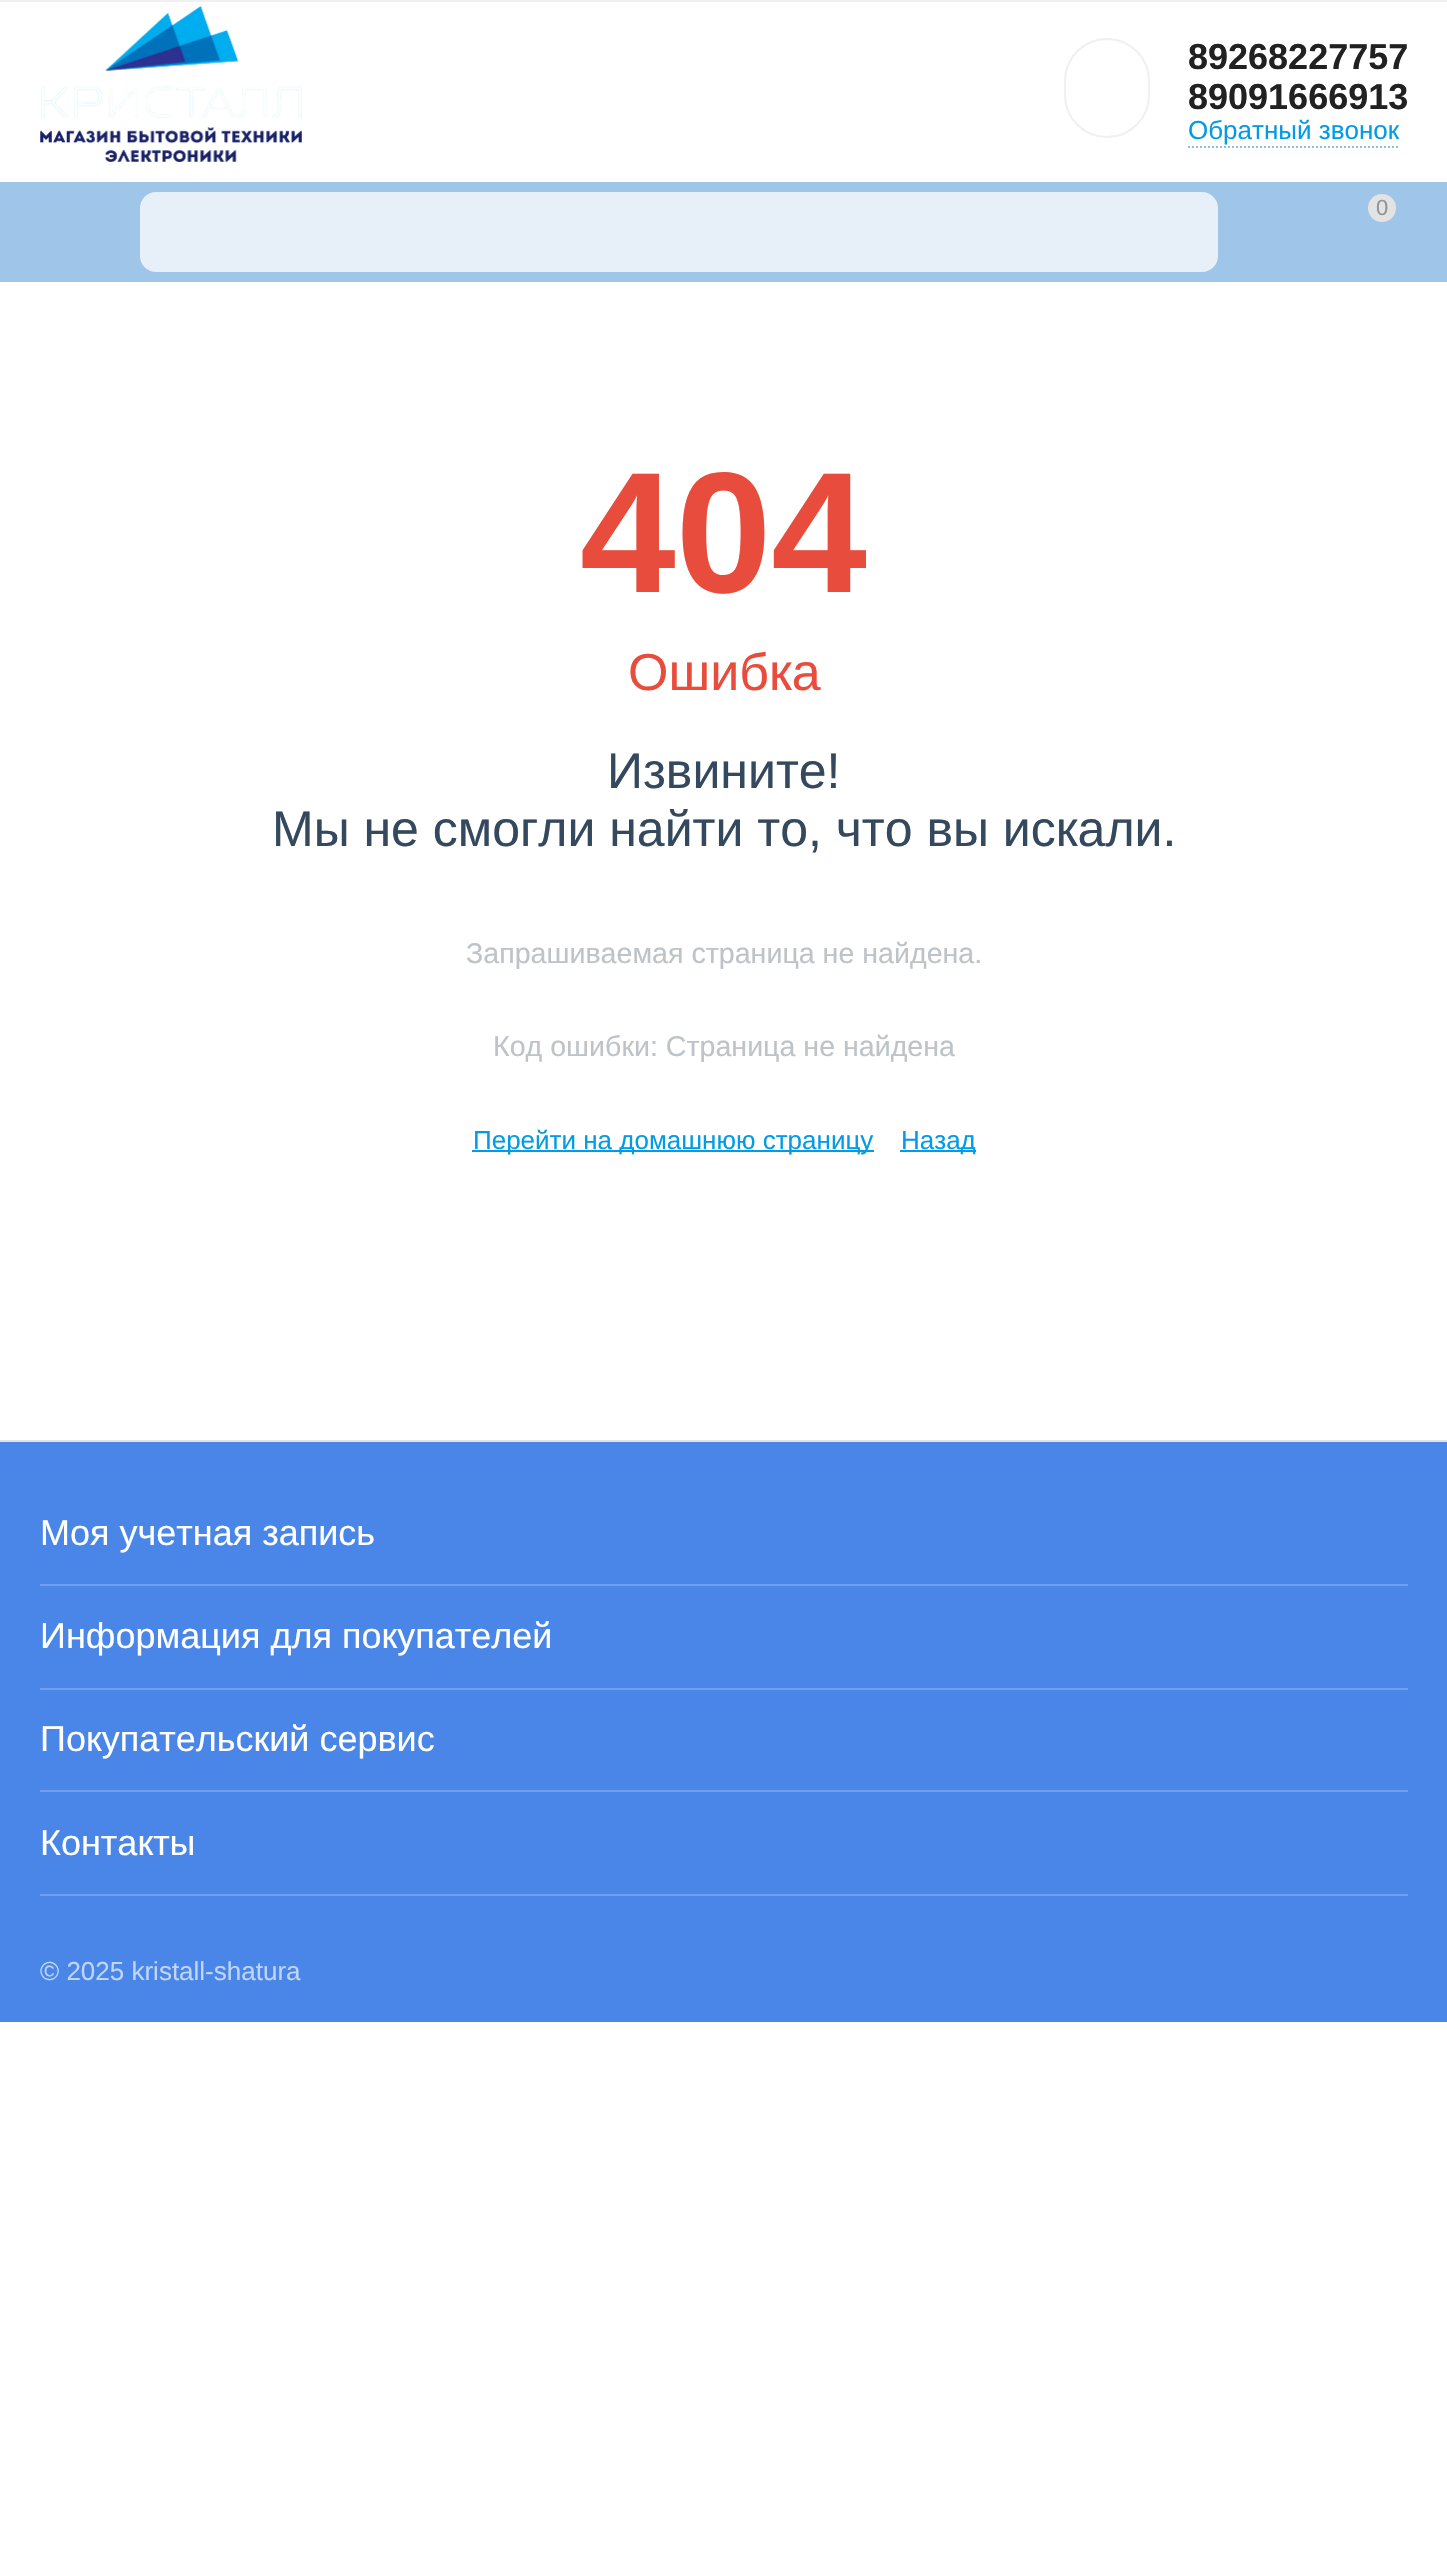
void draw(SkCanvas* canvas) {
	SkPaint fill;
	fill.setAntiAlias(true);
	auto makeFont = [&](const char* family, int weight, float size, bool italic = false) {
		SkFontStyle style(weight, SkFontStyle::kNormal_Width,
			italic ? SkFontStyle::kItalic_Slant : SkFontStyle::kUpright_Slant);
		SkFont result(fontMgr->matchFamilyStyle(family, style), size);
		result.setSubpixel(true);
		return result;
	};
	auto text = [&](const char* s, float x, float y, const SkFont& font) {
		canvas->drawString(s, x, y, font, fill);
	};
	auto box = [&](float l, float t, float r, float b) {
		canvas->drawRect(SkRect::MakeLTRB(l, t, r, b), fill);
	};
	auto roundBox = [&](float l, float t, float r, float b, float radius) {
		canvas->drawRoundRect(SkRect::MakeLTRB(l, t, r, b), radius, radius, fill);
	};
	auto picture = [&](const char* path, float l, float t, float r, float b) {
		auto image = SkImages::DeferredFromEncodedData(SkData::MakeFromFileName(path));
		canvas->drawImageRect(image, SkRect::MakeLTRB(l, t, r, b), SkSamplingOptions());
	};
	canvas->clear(0xFFFFFFFF);
	fill.setColor(0xFFF0F0F0);
	box(0, 0, 1447, 2);
	picture("image0.png", 40, 6, 302, 162);
	fill.setStyle(SkPaint::kStroke_Style);
	fill.setStrokeWidth(2);
	canvas->drawRoundRect(SkRect::MakeLTRB(1065, 39, 1149, 137), 42, 42, fill);
	fill.setColor(0xFF90C0D7);
	fill.setPathEffect(SkDashPathEffect::Make({{2, 2}}, 0));
	canvas->drawPath(SkPathBuilder().moveTo(1188, 147).lineTo(1398, 147).detach(), fill);
	fill.setPathEffect(nullptr);
	fill.setStyle(SkPaint::kFill_Style);
	fill.setColor(0xFF9FC5E8);
	box(0, 182, 1447, 282);
	fill.setColor(0xFFE7F0F9);
	roundBox(140, 192, 1218, 272, 16);
	fill.setColor(0xFFE3E3E3);
	canvas->drawCircle(1382, 208, 14, fill);
	fill.setColor(0xFF039BE5);
	box(472, 1150, 874, 1152);
	box(900, 1150, 976, 1152);
	fill.setColor(0xFF4A86E8);
	box(0, 1442, 1447, 2022);
	fill.setColor(0xFFE3E3E3);
	box(0, 1440, 1447, 1442);
	fill.setColor(0xFF6E9EED);
	box(40, 1584, 1408, 1586);
	box(40, 1688, 1408, 1690);
	box(40, 1790, 1408, 1792);
	box(40, 1894, 1408, 1896);
	auto font1 = makeFont("Liberation Sans", 700, 36);
	fill.setColor(0xFF212121);
	text("89268227757", 1188, 69, font1);
	text("89091666913", 1188, 109, font1);
	auto font2 = makeFont("Liberation Sans", 400, 26);
	fill.setColor(0xFF039BE5);
	text("Обратный звонок", 1188, 139, font2);
	auto font3 = makeFont("Liberation Sans", 400, 22);
	fill.setColor(0xFF949494);
	text("0", 1376, 215, font3);
	auto font4 = makeFont("Liberation Sans", 700, 172);
	fill.setColor(0xFFE74C3C);
	text("404", 580, 592, font4);
	auto font5 = makeFont("Liberation Sans", 400, 52);
	text("Ошибка", 628, 690, font5);
	auto font6 = makeFont("Liberation Sans", 400, 50);
	fill.setColor(0xFF34495E);
	text("Извините!", 607, 788, font6);
	text("Мы не смогли найти то, что вы искали.", 272, 846, font6);
	auto font7 = makeFont("Liberation Sans", 400, 28.6f);
	fill.setColor(0xFFBDC3C7);
	text("Запрашиваемая страница не найдена.", 466, 963, font7);
	text("Код ошибки: Страница не найдена", 493, 1056, font7);
	fill.setColor(0xFF039BE5);
	text("Перейти на домашнюю страницу", 473, 1149, font2);
	text("Назад", 901, 1149, font2);
	auto font8 = makeFont("Liberation Sans", 400, 36);
	fill.setColor(0xFFFFFFFF);
	text("Моя учетная запись", 40, 1545, font8);
	text("Информация для покупателей", 40, 1648, font8);
	text("Покупательский сервис", 40, 1751, font8);
	text("Контакты", 40, 1855, font8);
	fill.setColor(0xFFC0D5F7);
	text("© 2025 kristall-shatura", 40, 1980, font2);
}
